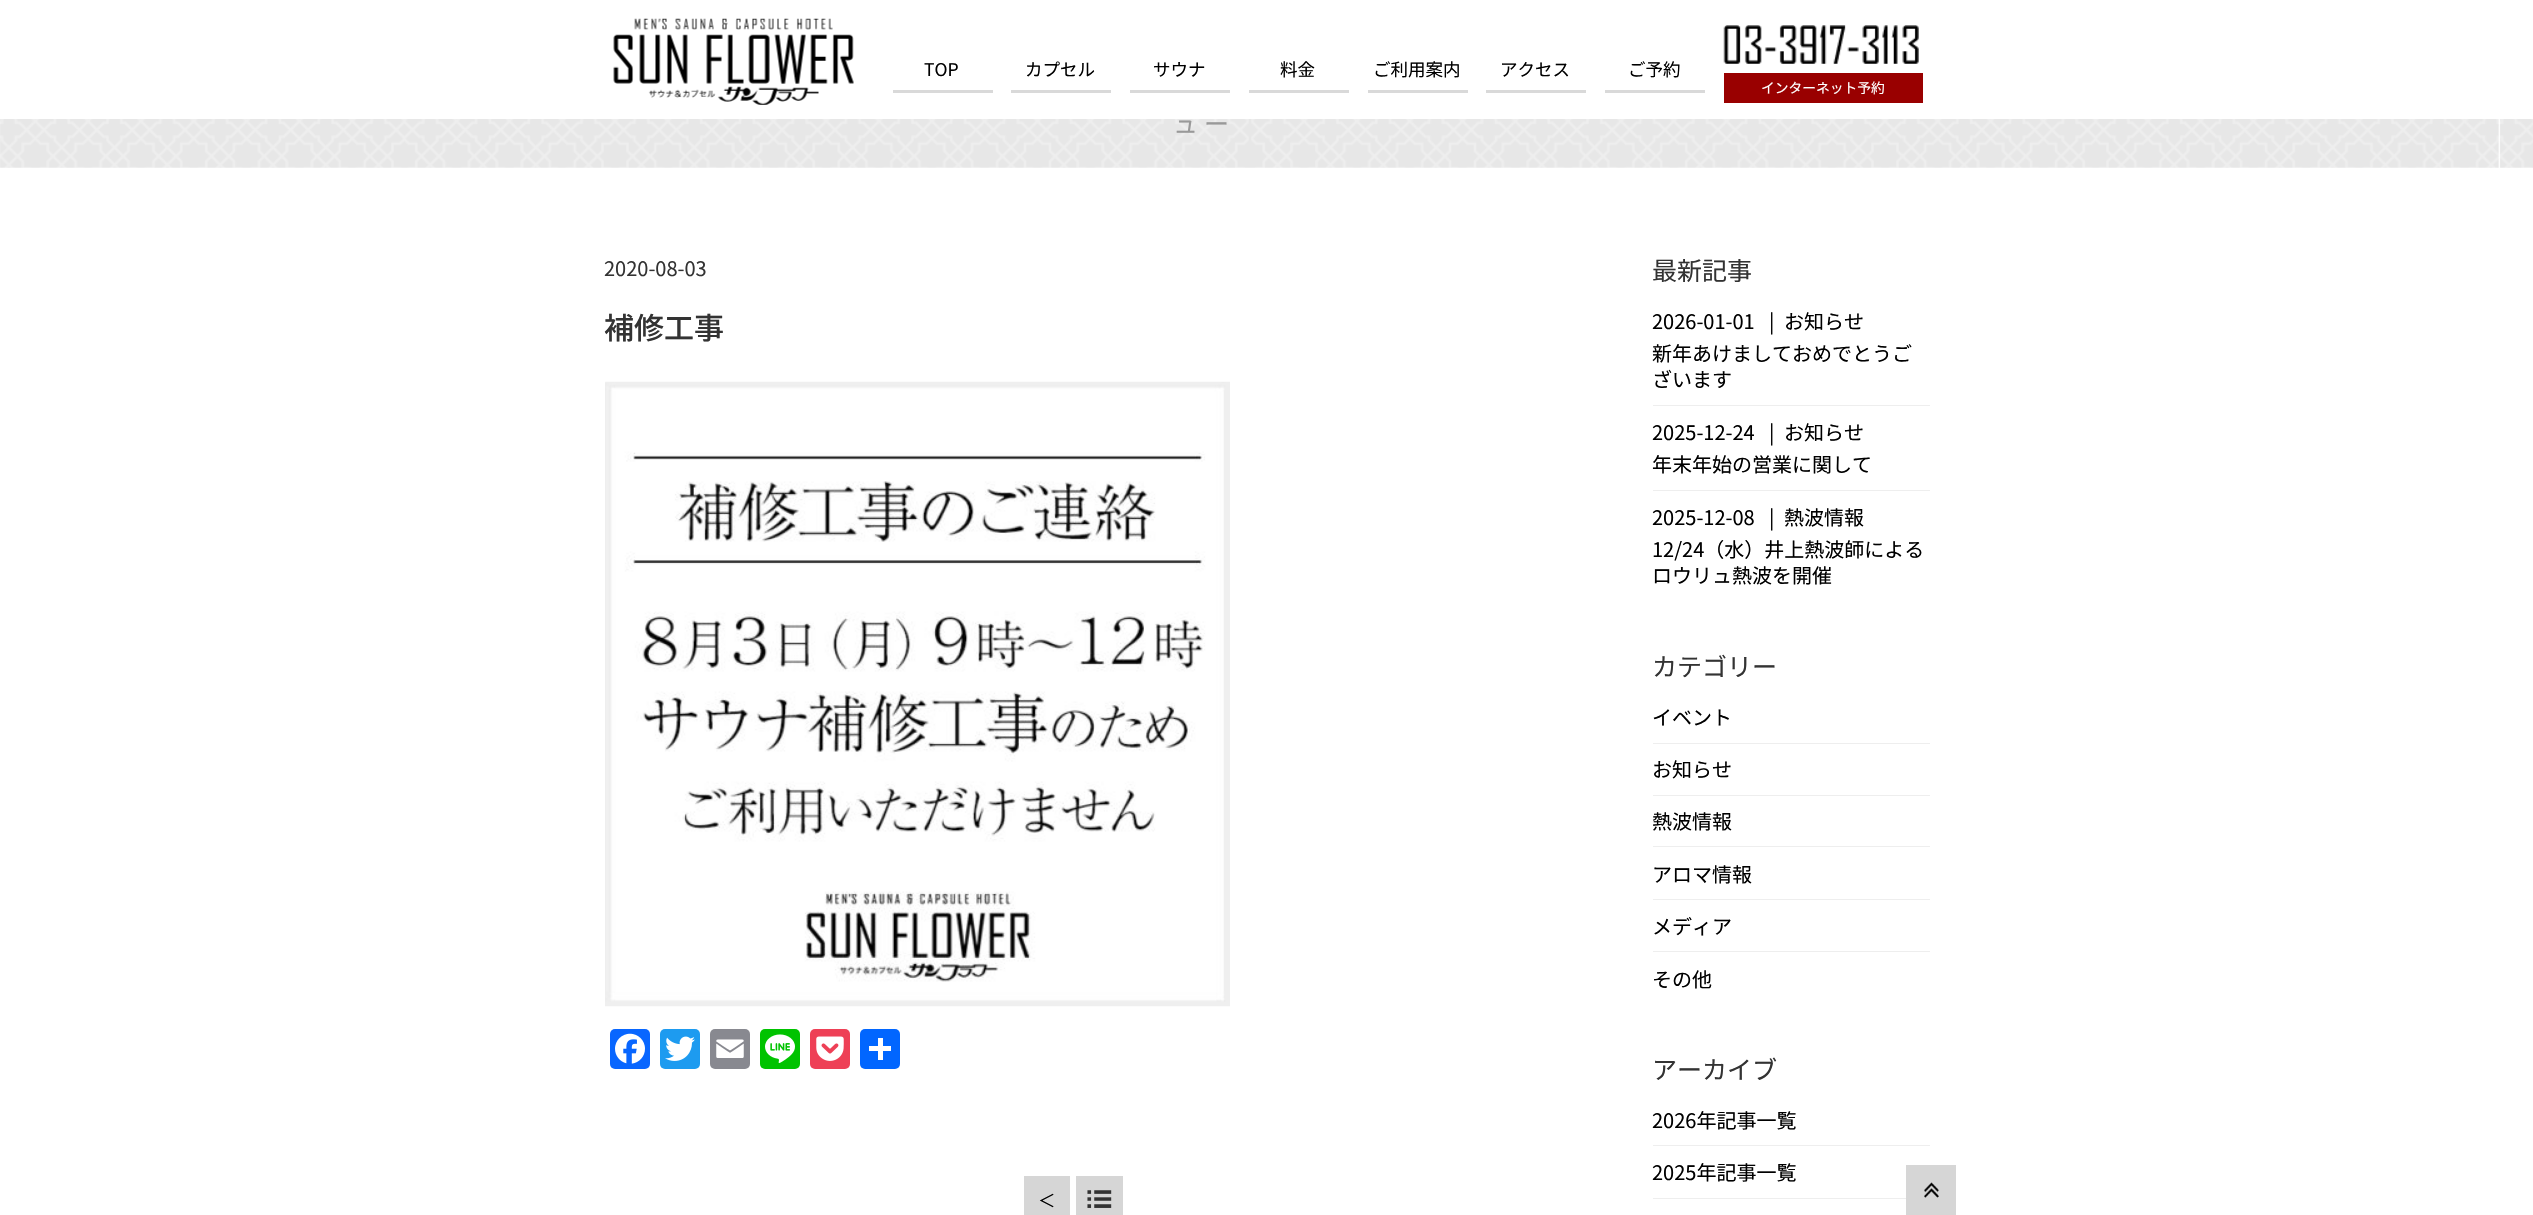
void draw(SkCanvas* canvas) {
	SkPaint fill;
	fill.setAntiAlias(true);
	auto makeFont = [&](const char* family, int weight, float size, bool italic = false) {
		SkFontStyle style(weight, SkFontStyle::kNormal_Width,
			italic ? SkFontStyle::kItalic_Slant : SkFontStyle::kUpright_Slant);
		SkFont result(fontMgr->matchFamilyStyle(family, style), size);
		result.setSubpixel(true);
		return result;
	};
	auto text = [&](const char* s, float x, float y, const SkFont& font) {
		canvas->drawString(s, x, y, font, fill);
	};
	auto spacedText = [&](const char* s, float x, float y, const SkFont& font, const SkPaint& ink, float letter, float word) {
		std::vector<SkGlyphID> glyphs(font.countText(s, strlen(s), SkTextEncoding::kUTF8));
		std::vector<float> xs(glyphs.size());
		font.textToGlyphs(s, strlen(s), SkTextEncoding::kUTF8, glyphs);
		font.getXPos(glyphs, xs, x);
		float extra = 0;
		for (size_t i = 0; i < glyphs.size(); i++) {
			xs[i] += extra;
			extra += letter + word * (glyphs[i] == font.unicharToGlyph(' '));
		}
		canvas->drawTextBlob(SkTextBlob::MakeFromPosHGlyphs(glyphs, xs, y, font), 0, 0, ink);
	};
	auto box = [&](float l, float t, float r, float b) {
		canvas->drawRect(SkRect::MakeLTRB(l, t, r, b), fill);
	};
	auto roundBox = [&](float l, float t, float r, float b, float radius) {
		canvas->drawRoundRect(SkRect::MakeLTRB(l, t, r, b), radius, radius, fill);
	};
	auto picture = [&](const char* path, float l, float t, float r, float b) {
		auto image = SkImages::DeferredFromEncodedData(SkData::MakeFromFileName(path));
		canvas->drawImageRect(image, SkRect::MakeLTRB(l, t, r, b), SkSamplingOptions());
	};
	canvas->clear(0xFFFFFFFF);
	picture("image0.png", 613, 18, 854, 105);
	fill.setColor(0xFFD9D9D9);
	box(893, 90, 993, 93);
	box(1011, 90, 1111, 93);
	box(1130, 90, 1230, 93);
	box(1249, 90, 1349, 93);
	box(1368, 90, 1468, 93);
	box(1486, 90, 1586, 93);
	box(1605, 90, 1705, 93);
	picture("image1.png", 1723, 25, 1919, 64);
	fill.setColor(0xFF990000);
	box(1724, 73, 1923, 103);
	picture("image2.png", 0, 119, 2533, 168);
	picture("image3.png", 605, 381, 1230, 1007);
	fill.setColor(0xFF0866FF);
	roundBox(610, 1029, 650, 1069, 5);
	picture("image4.png", 615, 1033, 645, 1064);
	fill.setColor(0xFF1D9BF0);
	roundBox(660, 1029, 700, 1069, 5);
	picture("image5.png", 665, 1036, 695, 1061);
	fill.setColor(0xFF888990);
	roundBox(710, 1029, 750, 1069, 5);
	picture("image6.png", 716, 1039, 744, 1058);
	fill.setColor(0xFF00C300);
	roundBox(760, 1029, 800, 1069, 5);
	picture("image7.png", 765, 1034, 795, 1063);
	fill.setColor(0xFFEE4056);
	roundBox(810, 1029, 850, 1069, 5);
	picture("image8.png", 816, 1036, 844, 1061);
	fill.setColor(0xFF0166FF);
	roundBox(860, 1029, 900, 1069, 5);
	fill.setColor(0xFFFFFFFF);
	box(878, 1038, 883, 1060);
	box(869, 1046, 891, 1051);
	fill.setColor(0xFFD6D6D6);
	box(1024, 1176, 1070, 1215);
	box(1076, 1176, 1123, 1215);
	picture("image9.png", 1087, 1190, 1112, 1208);
	fill.setColor(0xFFEEEEEE);
	box(1653, 405, 1930, 406);
	box(1653, 490, 1930, 491);
	box(1653, 743, 1930, 744);
	box(1653, 795, 1930, 796);
	box(1653, 846, 1930, 847);
	box(1653, 899, 1930, 900);
	box(1653, 951, 1930, 952);
	box(1653, 1145, 1930, 1146);
	box(1653, 1198, 1906, 1199);
	fill.setColor(0xFFD6D6D6);
	box(1906, 1165, 1956, 1215);
	picture("image10.png", 1924, 1182, 1939, 1198);
	auto font1 = makeFont("Noto Sans JP", 400, 17.5f);
	fill.setColor(0xFF000000);
	text("TOP", 924, 76, font1);
	text("カプセル", 1025, 76, font1);
	text("サウナ", 1153, 76, font1);
	text("料金", 1280, 76, font1);
	text("ご利用案内", 1373, 76, font1);
	text("アクセス", 1500, 76, font1);
	text("ご予約", 1628, 76, font1);
	auto font2 = makeFont("Noto Sans JP", 400, 13.75f);
	fill.setColor(0xFFFFFFFF);
	text("インターネット予約", 1761, 93, font2);
	auto font3 = makeFont("Noto Sans JP", 400, 25);
	fill.setColor(0xFF999999);
	spacedText("ュー", 1173, 133, font3, fill, 6, 0);
	auto font4 = makeFont("Noto Sans JP", 400, 20);
	fill.setColor(0xFF333333);
	text("2020-08-03", 604, 276, font4);
	auto font5 = makeFont("Noto Sans JP", 500, 30);
	text("補修工事", 604, 339, font5);
	fill.setColor(0xFF000000);
	text("＜", 1038, 1207, font1);
	fill.setColor(0xFF333333);
	text("最新記事", 1652, 280, font3);
	fill.setColor(0xFF000000);
	text("2026-01-01", 1652, 329, font4);
	text("|", 1769, 329, font4);
	text("お知らせ", 1784, 329, font4);
	text("新年あけましておめでとうご", 1652, 361, font4);
	text("ざいます", 1652, 387, font4);
	text("2025-12-24", 1652, 440, font4);
	text("|", 1769, 440, font4);
	text("お知らせ", 1784, 440, font4);
	text("年末年始の営業に関して", 1652, 472, font4);
	text("2025-12-08", 1652, 525, font4);
	text("|", 1769, 525, font4);
	text("熱波情報", 1784, 525, font4);
	text("12/24（水）井上熱波師による", 1652, 557, font4);
	text("ロウリュ熱波を開催", 1652, 583, font4);
	fill.setColor(0xFF333333);
	text("カテゴリー", 1652, 676, font3);
	fill.setColor(0xFF000000);
	text("イベント", 1652, 725, font4);
	text("お知らせ", 1652, 777, font4);
	text("熱波情報", 1652, 829, font4);
	text("アロマ情報", 1652, 882, font4);
	text("メディア", 1652, 934, font4);
	text("その他", 1652, 987, font4);
	fill.setColor(0xFF333333);
	text("アーカイブ", 1652, 1079, font3);
	fill.setColor(0xFF000000);
	text("2026年記事一覧", 1652, 1128, font4);
	text("2025年記事一覧", 1652, 1180, font4);
}
